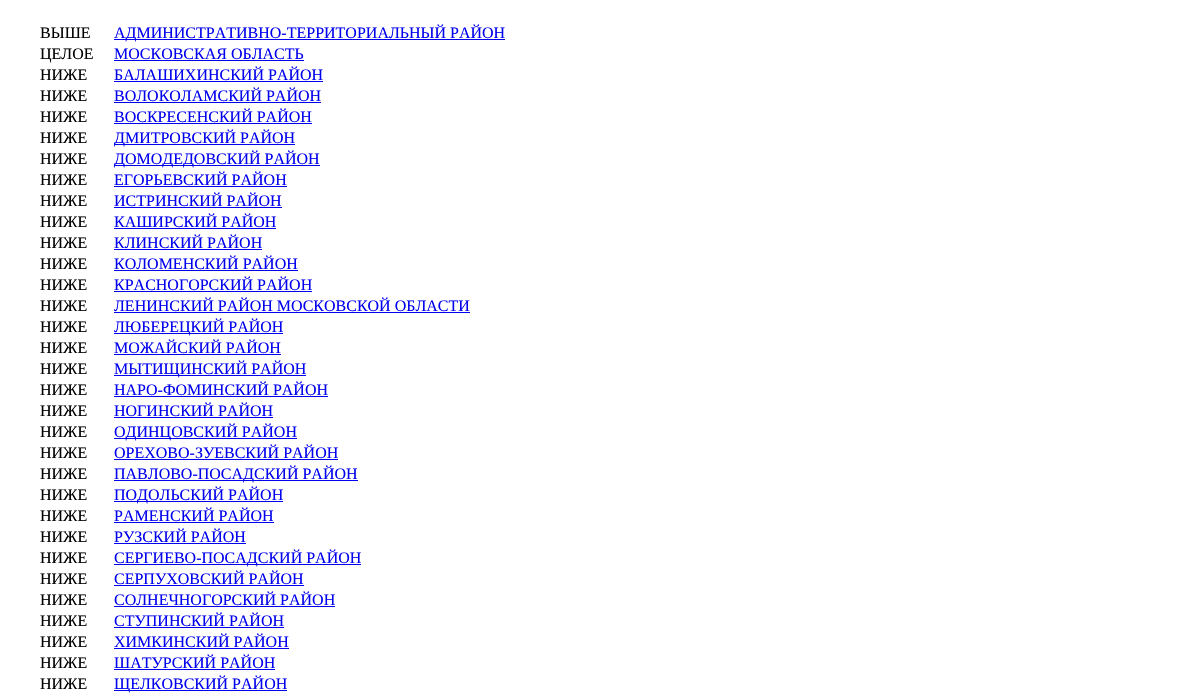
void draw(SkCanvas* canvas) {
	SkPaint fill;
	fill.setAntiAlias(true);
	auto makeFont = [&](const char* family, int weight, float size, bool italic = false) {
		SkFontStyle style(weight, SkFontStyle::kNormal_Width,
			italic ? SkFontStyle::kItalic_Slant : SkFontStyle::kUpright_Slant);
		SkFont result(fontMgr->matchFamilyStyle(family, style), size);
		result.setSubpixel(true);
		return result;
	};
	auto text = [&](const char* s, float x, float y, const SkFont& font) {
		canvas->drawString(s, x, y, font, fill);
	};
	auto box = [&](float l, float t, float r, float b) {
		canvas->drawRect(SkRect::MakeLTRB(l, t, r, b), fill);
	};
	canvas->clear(0xFFFFFFFF);
	fill.setColor(0xFF0000EE);
	box(114, 39, 505, 40);
	box(114, 60, 304, 61);
	box(114, 81, 323, 82);
	box(114, 102, 321, 103);
	box(114, 123, 312, 124);
	box(114, 144, 295, 145);
	box(114, 165, 320, 166);
	box(114, 186, 287, 187);
	box(114, 207, 282, 208);
	box(114, 228, 276, 229);
	box(114, 249, 262, 250);
	box(114, 270, 298, 271);
	box(114, 291, 312, 292);
	box(114, 312, 470, 313);
	box(114, 333, 283, 334);
	box(114, 354, 281, 355);
	box(114, 375, 306, 376);
	box(114, 396, 328, 397);
	box(114, 417, 273, 418);
	box(114, 438, 297, 439);
	box(114, 459, 338, 460);
	box(114, 480, 358, 481);
	box(114, 501, 283, 502);
	box(114, 522, 274, 523);
	box(114, 543, 246, 544);
	box(114, 564, 361, 565);
	box(114, 585, 304, 586);
	box(114, 606, 335, 607);
	box(114, 627, 284, 628);
	box(114, 648, 289, 649);
	box(114, 669, 275, 670);
	box(114, 690, 287, 691);
	auto font1 = makeFont("Liberation Serif", 400, 16);
	fill.setColor(0xFF000000);
	text("ВЫШЕ", 40, 38, font1);
	fill.setColor(0xFF0000EE);
	text("АДМИНИСТРАТИВНО-ТЕРРИТОРИАЛЬНЫЙ РАЙОН", 114, 38, font1);
	fill.setColor(0xFF000000);
	text("ЦЕЛОЕ", 40, 59, font1);
	fill.setColor(0xFF0000EE);
	text("МОСКОВСКАЯ ОБЛАСТЬ", 114, 59, font1);
	fill.setColor(0xFF000000);
	text("НИЖЕ", 40, 80, font1);
	fill.setColor(0xFF0000EE);
	text("БАЛАШИХИНСКИЙ РАЙОН", 114, 80, font1);
	fill.setColor(0xFF000000);
	text("НИЖЕ", 40, 101, font1);
	fill.setColor(0xFF0000EE);
	text("ВОЛОКОЛАМСКИЙ РАЙОН", 114, 101, font1);
	fill.setColor(0xFF000000);
	text("НИЖЕ", 40, 122, font1);
	fill.setColor(0xFF0000EE);
	text("ВОСКРЕСЕНСКИЙ РАЙОН", 114, 122, font1);
	fill.setColor(0xFF000000);
	text("НИЖЕ", 40, 143, font1);
	fill.setColor(0xFF0000EE);
	text("ДМИТРОВСКИЙ РАЙОН", 114, 143, font1);
	fill.setColor(0xFF000000);
	text("НИЖЕ", 40, 164, font1);
	fill.setColor(0xFF0000EE);
	text("ДОМОДЕДОВСКИЙ РАЙОН", 114, 164, font1);
	fill.setColor(0xFF000000);
	text("НИЖЕ", 40, 185, font1);
	fill.setColor(0xFF0000EE);
	text("ЕГОРЬЕВСКИЙ РАЙОН", 114, 185, font1);
	fill.setColor(0xFF000000);
	text("НИЖЕ", 40, 206, font1);
	fill.setColor(0xFF0000EE);
	text("ИСТРИНСКИЙ РАЙОН", 114, 206, font1);
	fill.setColor(0xFF000000);
	text("НИЖЕ", 40, 227, font1);
	fill.setColor(0xFF0000EE);
	text("КАШИРСКИЙ РАЙОН", 114, 227, font1);
	fill.setColor(0xFF000000);
	text("НИЖЕ", 40, 248, font1);
	fill.setColor(0xFF0000EE);
	text("КЛИНСКИЙ РАЙОН", 114, 248, font1);
	fill.setColor(0xFF000000);
	text("НИЖЕ", 40, 269, font1);
	fill.setColor(0xFF0000EE);
	text("КОЛОМЕНСКИЙ РАЙОН", 114, 269, font1);
	fill.setColor(0xFF000000);
	text("НИЖЕ", 40, 290, font1);
	fill.setColor(0xFF0000EE);
	text("КРАСНОГОРСКИЙ РАЙОН", 114, 290, font1);
	fill.setColor(0xFF000000);
	text("НИЖЕ", 40, 311, font1);
	fill.setColor(0xFF0000EE);
	text("ЛЕНИНСКИЙ РАЙОН МОСКОВСКОЙ ОБЛАСТИ", 114, 311, font1);
	fill.setColor(0xFF000000);
	text("НИЖЕ", 40, 332, font1);
	fill.setColor(0xFF0000EE);
	text("ЛЮБЕРЕЦКИЙ РАЙОН", 114, 332, font1);
	fill.setColor(0xFF000000);
	text("НИЖЕ", 40, 353, font1);
	fill.setColor(0xFF0000EE);
	text("МОЖАЙСКИЙ РАЙОН", 114, 353, font1);
	fill.setColor(0xFF000000);
	text("НИЖЕ", 40, 374, font1);
	fill.setColor(0xFF0000EE);
	text("МЫТИЩИНСКИЙ РАЙОН", 114, 374, font1);
	fill.setColor(0xFF000000);
	text("НИЖЕ", 40, 395, font1);
	fill.setColor(0xFF0000EE);
	text("НАРО-ФОМИНСКИЙ РАЙОН", 114, 395, font1);
	fill.setColor(0xFF000000);
	text("НИЖЕ", 40, 416, font1);
	fill.setColor(0xFF0000EE);
	text("НОГИНСКИЙ РАЙОН", 114, 416, font1);
	fill.setColor(0xFF000000);
	text("НИЖЕ", 40, 437, font1);
	fill.setColor(0xFF0000EE);
	text("ОДИНЦОВСКИЙ РАЙОН", 114, 437, font1);
	fill.setColor(0xFF000000);
	text("НИЖЕ", 40, 458, font1);
	fill.setColor(0xFF0000EE);
	text("ОРЕХОВО-ЗУЕВСКИЙ РАЙОН", 114, 458, font1);
	fill.setColor(0xFF000000);
	text("НИЖЕ", 40, 479, font1);
	fill.setColor(0xFF0000EE);
	text("ПАВЛОВО-ПОСАДСКИЙ РАЙОН", 114, 479, font1);
	fill.setColor(0xFF000000);
	text("НИЖЕ", 40, 500, font1);
	fill.setColor(0xFF0000EE);
	text("ПОДОЛЬСКИЙ РАЙОН", 114, 500, font1);
	fill.setColor(0xFF000000);
	text("НИЖЕ", 40, 521, font1);
	fill.setColor(0xFF0000EE);
	text("РАМЕНСКИЙ РАЙОН", 114, 521, font1);
	fill.setColor(0xFF000000);
	text("НИЖЕ", 40, 542, font1);
	fill.setColor(0xFF0000EE);
	text("РУЗСКИЙ РАЙОН", 114, 542, font1);
	fill.setColor(0xFF000000);
	text("НИЖЕ", 40, 563, font1);
	fill.setColor(0xFF0000EE);
	text("СЕРГИЕВО-ПОСАДСКИЙ РАЙОН", 114, 563, font1);
	fill.setColor(0xFF000000);
	text("НИЖЕ", 40, 584, font1);
	fill.setColor(0xFF0000EE);
	text("СЕРПУХОВСКИЙ РАЙОН", 114, 584, font1);
	fill.setColor(0xFF000000);
	text("НИЖЕ", 40, 605, font1);
	fill.setColor(0xFF0000EE);
	text("СОЛНЕЧНОГОРСКИЙ РАЙОН", 114, 605, font1);
	fill.setColor(0xFF000000);
	text("НИЖЕ", 40, 626, font1);
	fill.setColor(0xFF0000EE);
	text("СТУПИНСКИЙ РАЙОН", 114, 626, font1);
	fill.setColor(0xFF000000);
	text("НИЖЕ", 40, 647, font1);
	fill.setColor(0xFF0000EE);
	text("ХИМКИНСКИЙ РАЙОН", 114, 647, font1);
	fill.setColor(0xFF000000);
	text("НИЖЕ", 40, 668, font1);
	fill.setColor(0xFF0000EE);
	text("ШАТУРСКИЙ РАЙОН", 114, 668, font1);
	fill.setColor(0xFF000000);
	text("НИЖЕ", 40, 689, font1);
	fill.setColor(0xFF0000EE);
	text("ЩЕЛКОВСКИЙ РАЙОН", 114, 689, font1);
}
